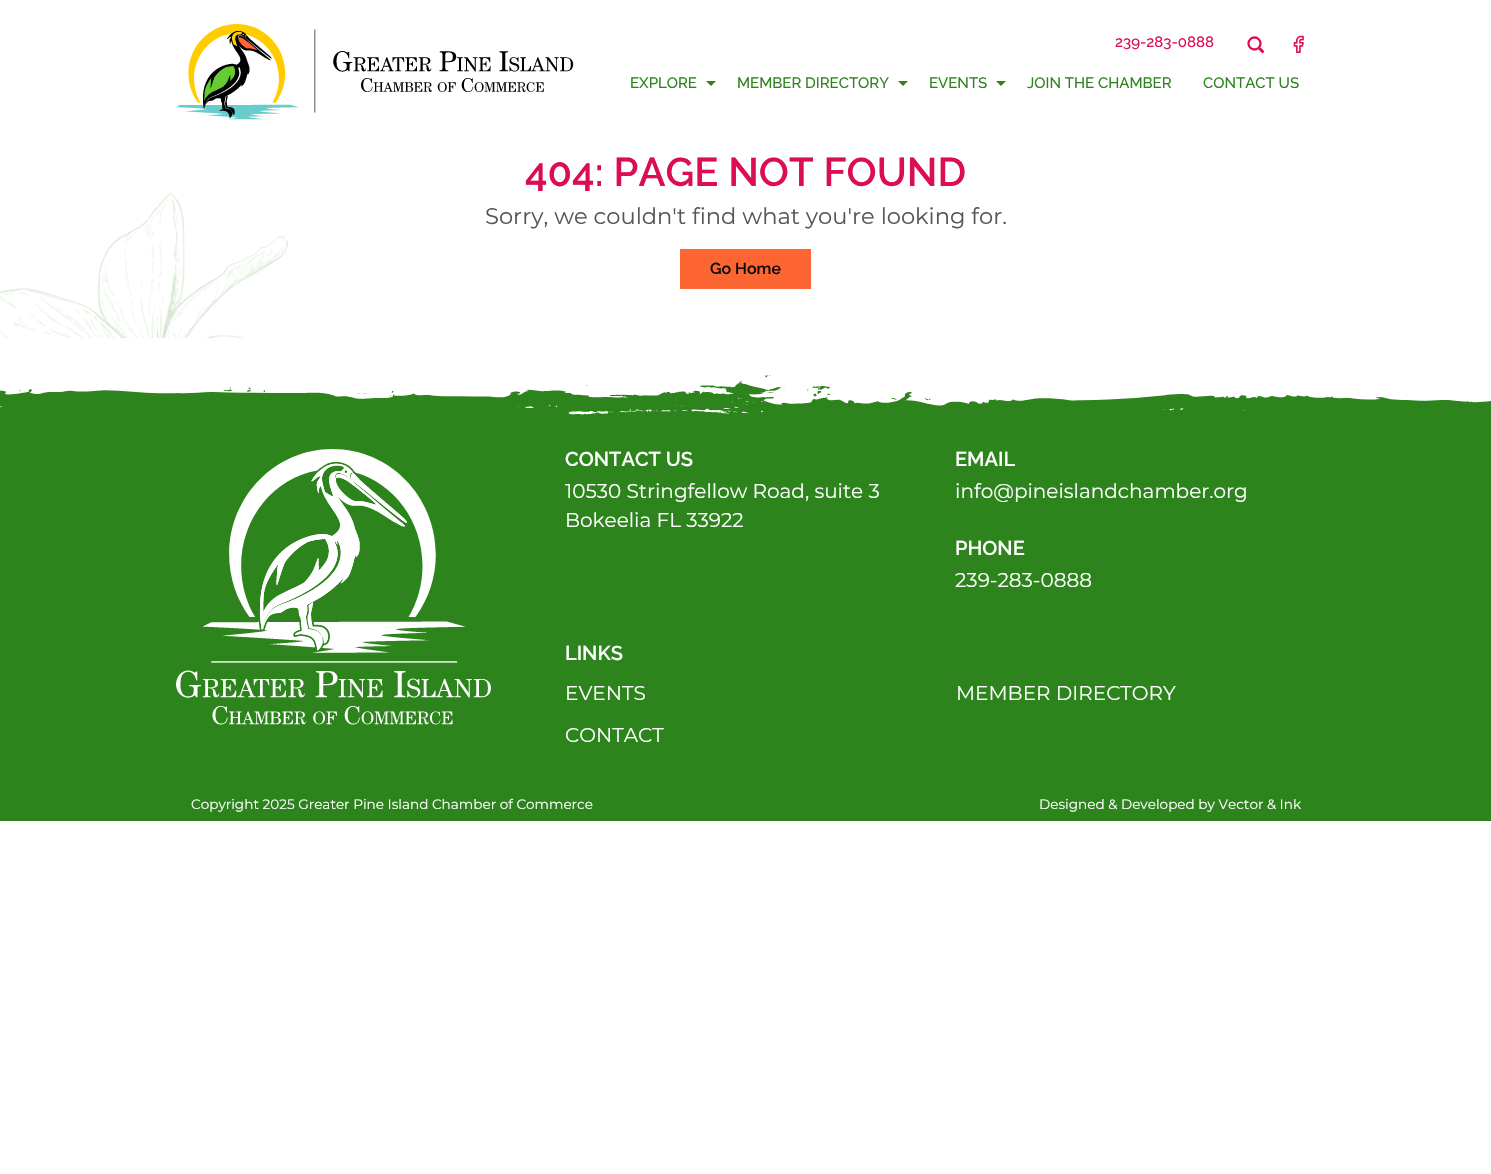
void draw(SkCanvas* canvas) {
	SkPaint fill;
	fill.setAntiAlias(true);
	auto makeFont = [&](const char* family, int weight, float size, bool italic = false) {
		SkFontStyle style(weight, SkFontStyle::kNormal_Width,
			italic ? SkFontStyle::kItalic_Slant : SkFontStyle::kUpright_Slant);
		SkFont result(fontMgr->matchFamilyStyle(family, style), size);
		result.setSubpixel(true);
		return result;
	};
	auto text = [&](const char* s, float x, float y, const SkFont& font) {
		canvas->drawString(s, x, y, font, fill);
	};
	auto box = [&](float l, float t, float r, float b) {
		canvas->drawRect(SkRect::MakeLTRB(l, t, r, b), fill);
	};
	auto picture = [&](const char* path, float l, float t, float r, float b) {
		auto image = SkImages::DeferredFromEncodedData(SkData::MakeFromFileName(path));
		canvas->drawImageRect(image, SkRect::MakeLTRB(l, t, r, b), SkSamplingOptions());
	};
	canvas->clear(0xFFFFFFFF);
	picture("image0.png", 176, 24, 574, 120);
	fill.setStyle(SkPaint::kStroke_Style);
	fill.setStrokeWidth(2.3f);
	fill.setColor(0xFFDB0E52);
	canvas->drawCircle(1254.5f, 43.5f, 6, fill);
	fill.setStrokeWidth(3.1f);
	fill.setStrokeCap(SkPaint::kRound_Cap);
	fill.setStrokeJoin(SkPaint::kRound_Join);
	canvas->drawPath(SkPathBuilder().moveTo(1262.5f, 51.5f).lineTo(1260, 49).detach(), fill);
	picture("image1.png", 1293, 35, 1304, 53);
	fill.setStyle(SkPaint::kFill_Style);
	fill.setColor(0xFF2D841D);
	canvas->drawPath(SkPathBuilder().moveTo(706, 81).lineTo(716, 81).lineTo(711, 86).close().detach(), fill);
	canvas->drawPath(SkPathBuilder().moveTo(898, 81).lineTo(908, 81).lineTo(903, 86).close().detach(), fill);
	canvas->drawPath(SkPathBuilder().moveTo(996, 81).lineTo(1006, 81).lineTo(1001, 86).close().detach(), fill);
	picture("image2.png", 0, 193, 288, 338);
	fill.setColor(0xFFFD6633);
	box(680, 249, 811, 289);
	fill.setColor(0xFF2D841D);
	box(0, 375, 1491, 821);
	picture("image3.png", 0, 338, 1491, 415);
	picture("image4.png", 176, 449, 491, 725);
	auto font1 = makeFont("Raleway", 500, 15);
	fill.setColor(0xFFDB0E52);
	text("239-283-0888", 1115, 47, font1);
	fill.setColor(0xFF2D841D);
	text("EXPLORE", 630, 88, font1);
	text("MEMBER DIRECTORY", 737, 88, font1);
	text("EVENTS", 929, 88, font1);
	text("JOIN THE CHAMBER", 1027, 88, font1);
	text("CONTACT US", 1203, 88, font1);
	auto font2 = makeFont("Raleway", 600, 40);
	fill.setColor(0xFFDB0E52);
	text("404: PAGE NOT FOUND", 525, 186, font2);
	auto font3 = makeFont("Montserrat", 400, 22.6f);
	fill.setColor(0xFF53575A);
	text("Sorry, we couldn't find what you're looking for.", 485, 224, font3);
	auto font4 = makeFont("Raleway", 600, 16);
	fill.setColor(0xFF0A0A0A);
	text("Go Home", 710, 274, font4);
	auto font5 = makeFont("Raleway", 600, 20);
	fill.setColor(0xFFFFFFFF);
	text("CONTACT US", 565, 466, font5);
	auto font6 = makeFont("Montserrat", 400, 20);
	text("10530 Stringfellow Road, suite 3", 565, 498, font6);
	text("Bokeelia FL 33922", 565, 527, font6);
	text("EMAIL", 955, 466, font5);
	text("info@pineislandchamber.org", 955, 498, font6);
	text("PHONE", 955, 555, font5);
	text("239-283-0888", 955, 587, font6);
	text("LINKS", 565, 660, font5);
	text("EVENTS", 565, 700, font6);
	text("MEMBER DIRECTORY", 956, 700, font6);
	text("CONTACT", 565, 742, font6);
	auto font7 = makeFont("Montserrat", 400, 13.6f);
	text("Copyright 2025 Greater Pine Island Chamber of Commerce", 191, 809, font7);
	text("Designed & Developed by Vector & Ink", 1039, 809, font7);
}
